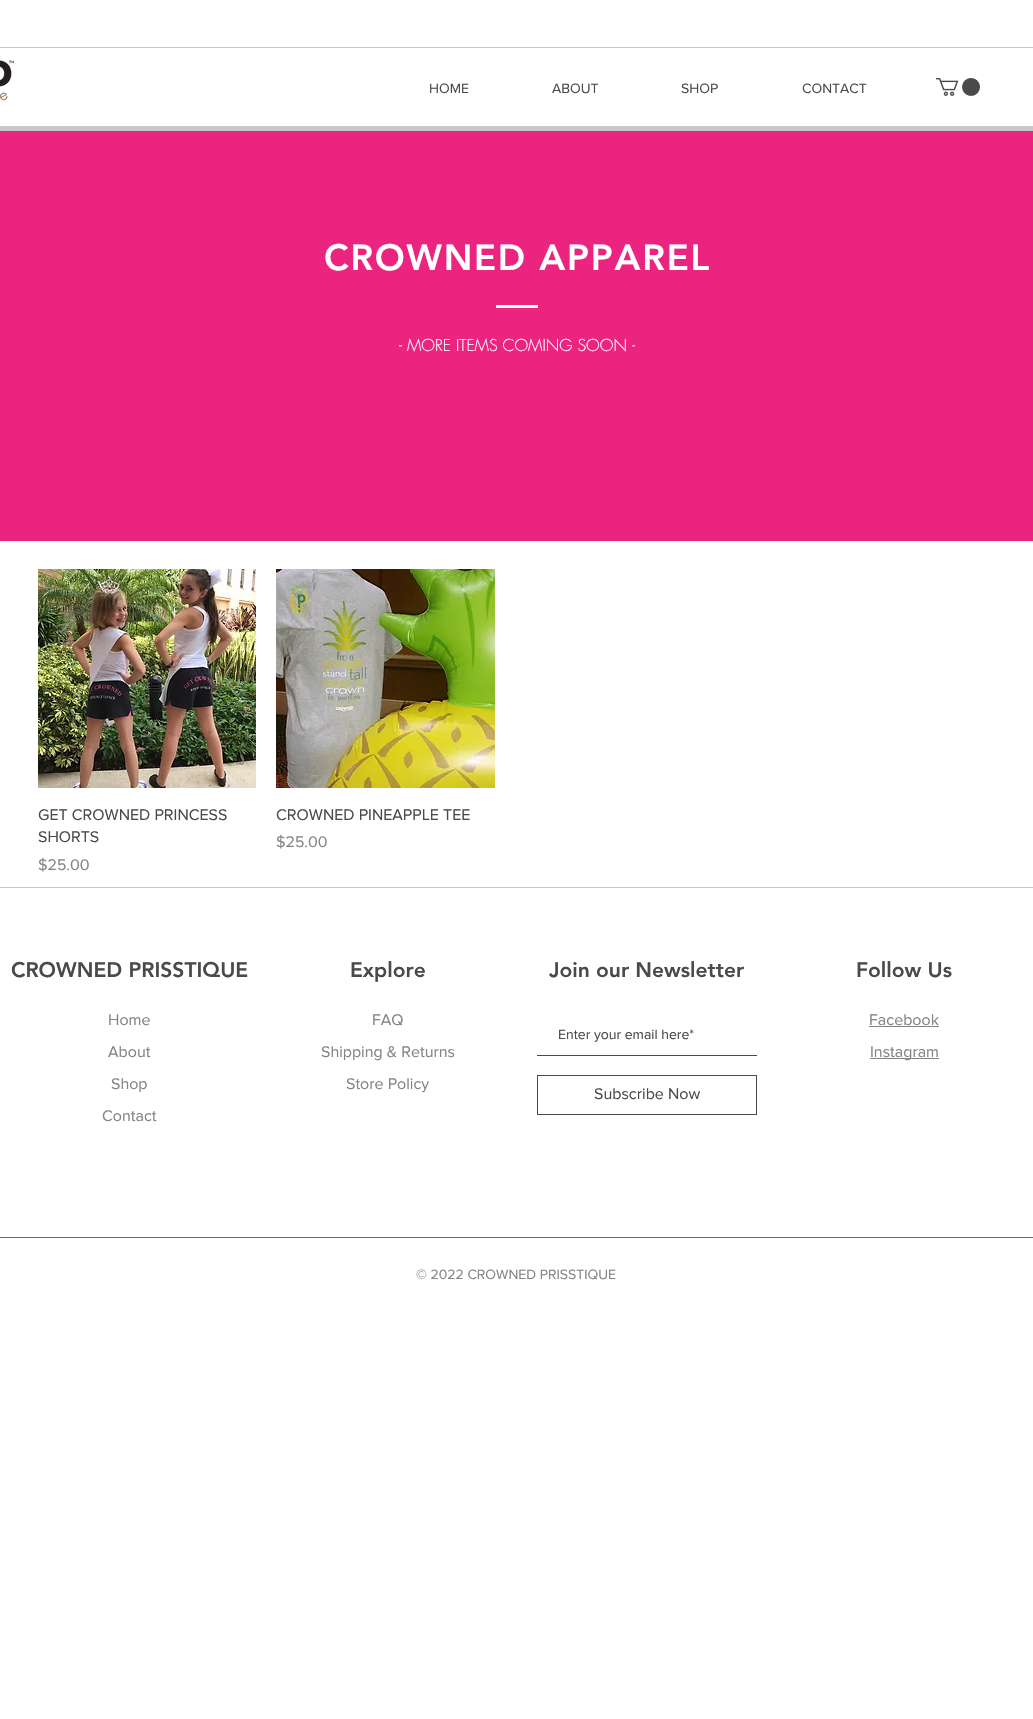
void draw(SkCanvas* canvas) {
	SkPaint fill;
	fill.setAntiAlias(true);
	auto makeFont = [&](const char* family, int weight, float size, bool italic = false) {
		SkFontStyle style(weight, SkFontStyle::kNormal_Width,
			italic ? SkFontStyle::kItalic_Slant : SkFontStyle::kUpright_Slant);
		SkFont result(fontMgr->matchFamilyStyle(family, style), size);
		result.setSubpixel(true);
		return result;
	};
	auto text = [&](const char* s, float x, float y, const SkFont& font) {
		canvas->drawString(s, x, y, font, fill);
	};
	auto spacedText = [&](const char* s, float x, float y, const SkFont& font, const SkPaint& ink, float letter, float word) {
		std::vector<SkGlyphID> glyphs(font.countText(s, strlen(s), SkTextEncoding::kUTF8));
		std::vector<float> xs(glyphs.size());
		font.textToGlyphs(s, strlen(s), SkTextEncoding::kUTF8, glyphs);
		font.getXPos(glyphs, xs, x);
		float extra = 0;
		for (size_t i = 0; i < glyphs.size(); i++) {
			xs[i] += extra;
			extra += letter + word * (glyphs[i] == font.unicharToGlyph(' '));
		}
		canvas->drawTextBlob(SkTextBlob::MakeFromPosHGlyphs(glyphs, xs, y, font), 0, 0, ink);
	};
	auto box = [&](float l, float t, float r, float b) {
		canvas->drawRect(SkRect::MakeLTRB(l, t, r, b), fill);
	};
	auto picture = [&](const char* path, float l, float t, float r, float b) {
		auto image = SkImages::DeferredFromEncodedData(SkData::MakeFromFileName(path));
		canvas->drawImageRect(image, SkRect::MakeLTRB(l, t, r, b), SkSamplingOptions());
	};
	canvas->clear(0xFFFFFFFF);
	fill.setColor(0xFFC7C7C7);
	box(0, 47, 1033, 48);
	picture("image0.png", 0, 60, 14, 101);
	box(0, 126, 1033, 131);
	picture("image1.png", 936, 78, 980, 96);
	fill.setColor(0xFFEB247F);
	box(0, 131, 1033, 541);
	fill.setColor(0xFFFFFFFF);
	box(496, 305, 538, 308);
	picture("image2.png", 38, 569, 256, 788);
	picture("image3.png", 276, 569, 495, 788);
	fill.setColor(0xFFC7C7C7);
	box(0, 887, 1033, 888);
	fill.setColor(0xFF4A4A4A);
	box(537, 1055, 757, 1056);
	fill.setStyle(SkPaint::kStroke_Style);
	fill.setStrokeWidth(1);
	canvas->drawRect(SkRect::MakeLTRB(537.5f, 1075.5f, 756.5f, 1114.5f), fill);
	fill.setStyle(SkPaint::kFill_Style);
	fill.setColor(0xFF858583);
	box(869, 1026, 939, 1027);
	box(870, 1058, 939, 1059);
	fill.setColor(0xFFEB247F);
	box(0, 1237, 1033, 1238);
	auto font1 = makeFont("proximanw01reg", 400, 14);
	fill.setColor(0xFF4A4A4A);
	text("HOME", 429, 93, font1);
	text("ABOUT", 552, 93, font1);
	text("SHOP", 681, 93, font1);
	text("CONTACT", 802, 93, font1);
	auto font2 = makeFont("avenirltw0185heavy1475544", 900, 36);
	fill.setColor(0xFFFFFFFF);
	spacedText("CROWNED APPAREL", 324, 270, font2, fill, 1.75f, 0);
	auto font3 = makeFont("futura", 300, 16);
	text("- MORE ITEMS COMING SOON -", 399, 351, font3);
	auto font4 = makeFont("proximanw01reg", 400, 16);
	fill.setColor(0xFF4A4A4A);
	text("GET CROWNED PRINCESS", 38, 820, font4);
	text("SHORTS", 38, 842, font4);
	fill.setColor(0xFF858583);
	text("$25.00", 38, 870, font4);
	fill.setColor(0xFF4A4A4A);
	text("CROWNED PINEAPPLE TEE", 276, 820, font4);
	fill.setColor(0xFF858583);
	text("$25.00", 276, 847, font4);
	auto font5 = makeFont("avenirltw0185heavy1475544", 900, 21);
	fill.setColor(0xFF4A4A4A);
	text("CROWNED PRISSTIQUE", 11, 977, font5);
	fill.setColor(0xFF858583);
	text("Home", 108, 1025, font4);
	text("About", 108, 1057, font4);
	text("Shop", 111, 1089, font4);
	text("Contact", 102, 1121, font4);
	fill.setColor(0xFF4A4A4A);
	text("Explore", 350, 977, font5);
	fill.setColor(0xFF858583);
	text("FAQ", 372, 1025, font4);
	text("Shipping & Returns", 321, 1057, font4);
	text("Store Policy", 346, 1089, font4);
	fill.setColor(0xFF4A4A4A);
	text("Join our Newsletter", 549, 977, font5);
	text("Enter your email here*", 558, 1039, font1);
	text("Subscribe Now", 594, 1099, font4);
	text("Follow Us", 856, 977, font5);
	fill.setColor(0xFF858583);
	text("Facebook", 869, 1025, font4);
	text("Instagram", 870, 1057, font4);
	text("© 2022 CROWNED PRISSTIQUE", 416, 1279, font1);
}
